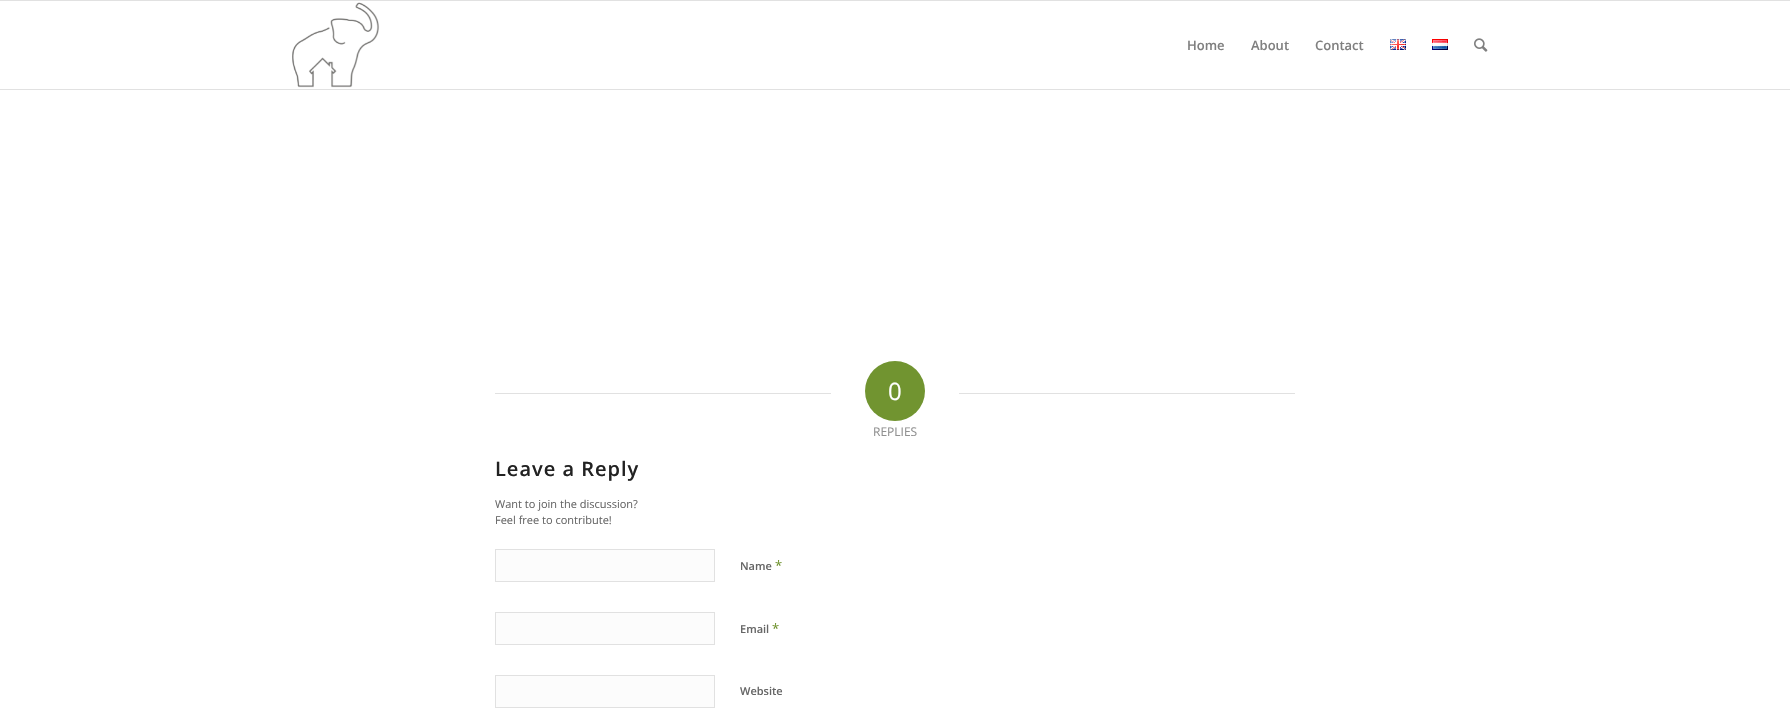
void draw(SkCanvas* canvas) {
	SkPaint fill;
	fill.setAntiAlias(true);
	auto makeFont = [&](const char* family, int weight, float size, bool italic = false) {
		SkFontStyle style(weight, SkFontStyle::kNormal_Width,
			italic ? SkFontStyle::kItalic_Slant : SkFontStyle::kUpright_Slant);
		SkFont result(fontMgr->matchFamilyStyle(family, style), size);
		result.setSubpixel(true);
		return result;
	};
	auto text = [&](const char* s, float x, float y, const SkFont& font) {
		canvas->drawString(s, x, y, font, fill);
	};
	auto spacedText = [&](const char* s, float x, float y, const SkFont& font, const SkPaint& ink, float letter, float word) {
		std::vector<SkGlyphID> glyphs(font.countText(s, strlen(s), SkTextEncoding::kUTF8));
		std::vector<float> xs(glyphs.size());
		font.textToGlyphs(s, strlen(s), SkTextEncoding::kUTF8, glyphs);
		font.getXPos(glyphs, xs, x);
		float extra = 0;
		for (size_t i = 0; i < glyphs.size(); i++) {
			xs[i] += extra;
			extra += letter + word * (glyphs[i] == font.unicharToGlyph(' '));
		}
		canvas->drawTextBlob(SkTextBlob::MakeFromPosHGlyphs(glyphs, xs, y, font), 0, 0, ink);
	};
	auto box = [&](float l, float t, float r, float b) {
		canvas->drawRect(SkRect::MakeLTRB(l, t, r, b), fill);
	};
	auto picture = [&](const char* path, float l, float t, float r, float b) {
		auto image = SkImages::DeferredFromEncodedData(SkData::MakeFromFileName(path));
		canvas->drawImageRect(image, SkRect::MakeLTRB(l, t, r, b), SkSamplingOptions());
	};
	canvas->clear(0xFFFFFFFF);
	fill.setColor(0xFFE1E1E1);
	box(0, 0, 1790, 1);
	box(0, 89, 1790, 90);
	picture("image0.png", 292, 2, 380, 88);
	picture("image1.png", 1390, 39, 1406, 50);
	picture("image2.png", 1432, 39, 1448, 50);
	picture("image3.png", 1474, 38, 1488, 52);
	box(495, 393, 831, 394);
	fill.setColor(0xFF719430);
	canvas->drawCircle(895, 391, 30, fill);
	fill.setColor(0xFFE1E1E1);
	box(959, 393, 1295, 394);
	fill.setColor(0xFFFCFCFC);
	canvas->drawRect(SkRect::MakeLTRB(495.5f, 549.5f, 714.5f, 581.5f), fill);
	fill.setStyle(SkPaint::kStroke_Style);
	fill.setStrokeWidth(1);
	fill.setColor(0xFFE1E1E1);
	canvas->drawRect(SkRect::MakeLTRB(495.5f, 549.5f, 714.5f, 581.5f), fill);
	fill.setStyle(SkPaint::kFill_Style);
	fill.setColor(0xFFFCFCFC);
	canvas->drawRect(SkRect::MakeLTRB(495.5f, 612.5f, 714.5f, 644.5f), fill);
	fill.setStyle(SkPaint::kStroke_Style);
	fill.setColor(0xFFE1E1E1);
	canvas->drawRect(SkRect::MakeLTRB(495.5f, 612.5f, 714.5f, 644.5f), fill);
	fill.setStyle(SkPaint::kFill_Style);
	fill.setColor(0xFFFCFCFC);
	canvas->drawRect(SkRect::MakeLTRB(495.5f, 675.5f, 714.5f, 707.5f), fill);
	fill.setStyle(SkPaint::kStroke_Style);
	fill.setColor(0xFFE1E1E1);
	canvas->drawRect(SkRect::MakeLTRB(495.5f, 675.5f, 714.5f, 707.5f), fill);
	auto font1 = makeFont("Open Sans", 600, 13);
	fill.setStyle(SkPaint::kFill_Style);
	fill.setColor(0xFF808080);
	text("Home", 1187, 50, font1);
	text("About", 1251, 50, font1);
	text("Contact", 1315, 50, font1);
	auto font2 = makeFont("Open Sans", 400, 24);
	fill.setColor(0xFFFFFFFF);
	text("0", 888, 400, font2);
	auto font3 = makeFont("Open Sans", 400, 12);
	fill.setColor(0xFF919191);
	text("REPLIES", 873, 436, font3);
	auto font4 = makeFont("Open Sans", 600, 20);
	fill.setColor(0xFF222222);
	spacedText("Leave a Reply", 495, 476, font4, fill, 1, 0);
	auto font5 = makeFont("Open Sans", 400, 11);
	fill.setColor(0xFF666666);
	text("Want to join the discussion?", 495, 508, font5);
	text("Feel free to contribute!", 495, 524, font5);
	auto font6 = makeFont("Open Sans", 600, 11);
	text("Name", 740, 570, font6);
	auto font7 = makeFont("Open Sans", 400, 13);
	fill.setColor(0xFF719430);
	text("*", 775, 570, font7);
	fill.setColor(0xFF666666);
	text("Email", 740, 633, font6);
	fill.setColor(0xFF719430);
	text("*", 772, 633, font7);
	fill.setColor(0xFF666666);
	text("Website", 740, 695, font6);
}
